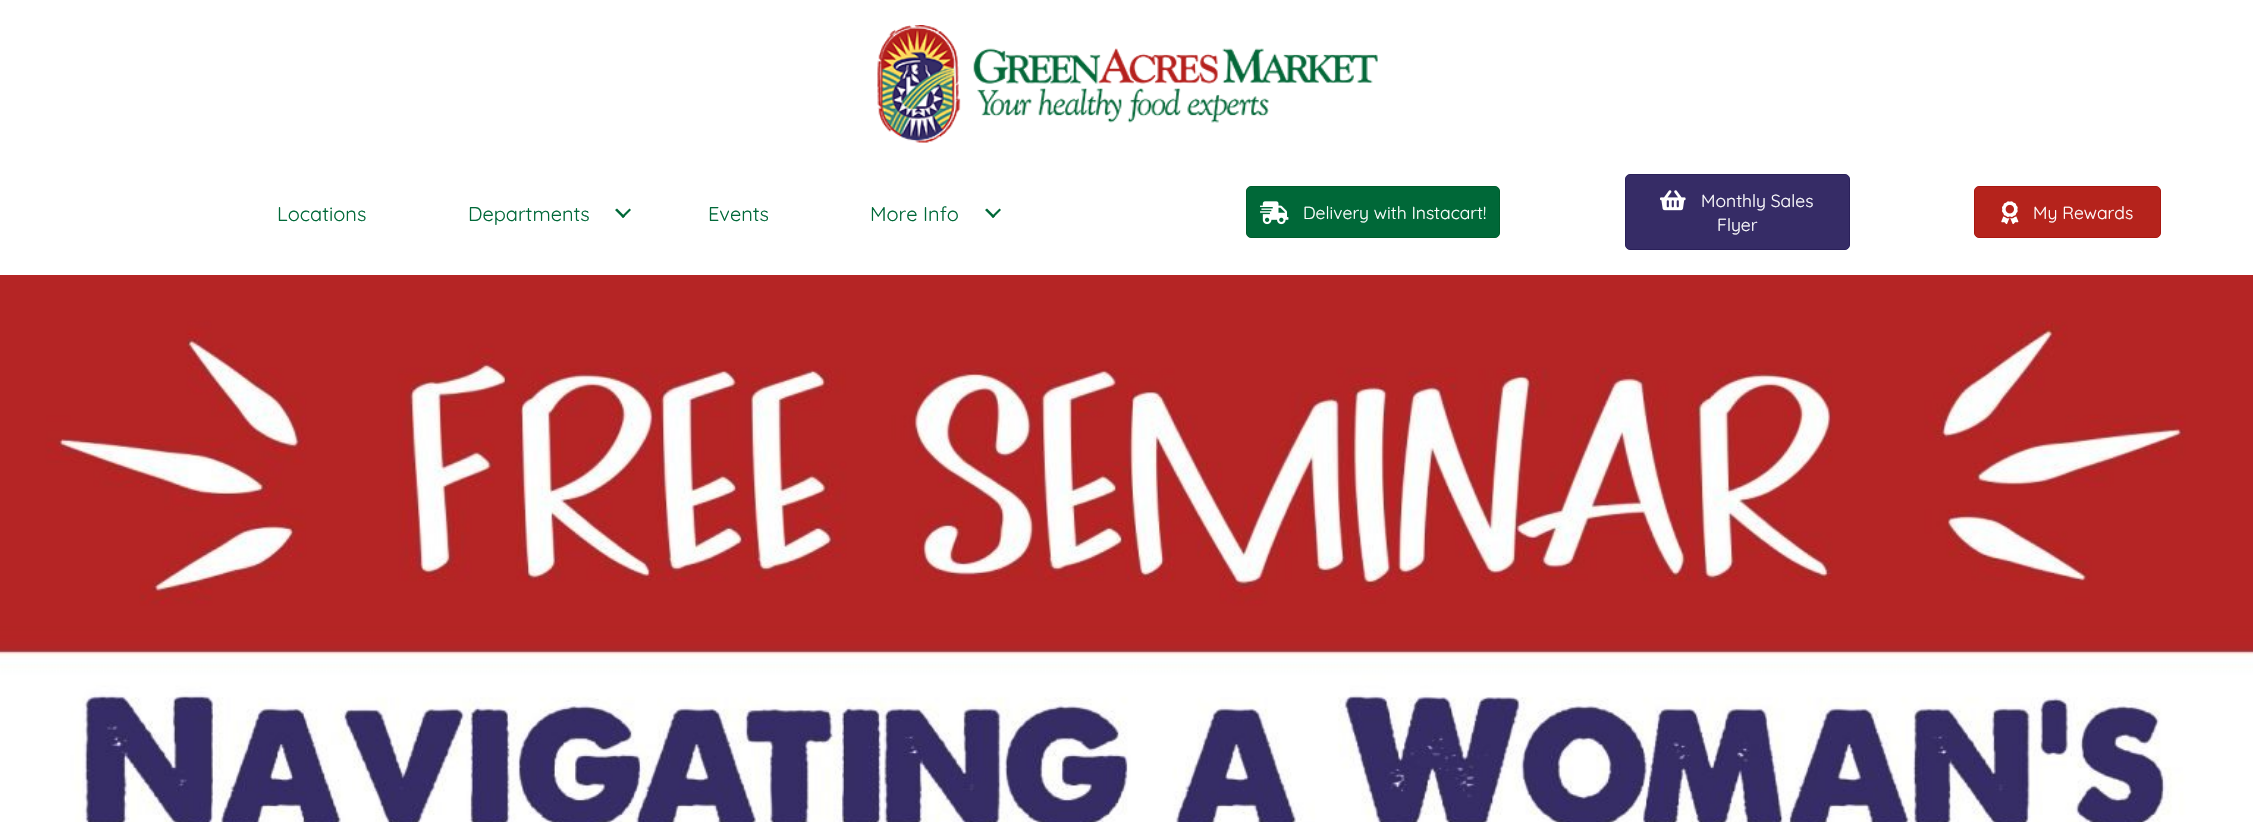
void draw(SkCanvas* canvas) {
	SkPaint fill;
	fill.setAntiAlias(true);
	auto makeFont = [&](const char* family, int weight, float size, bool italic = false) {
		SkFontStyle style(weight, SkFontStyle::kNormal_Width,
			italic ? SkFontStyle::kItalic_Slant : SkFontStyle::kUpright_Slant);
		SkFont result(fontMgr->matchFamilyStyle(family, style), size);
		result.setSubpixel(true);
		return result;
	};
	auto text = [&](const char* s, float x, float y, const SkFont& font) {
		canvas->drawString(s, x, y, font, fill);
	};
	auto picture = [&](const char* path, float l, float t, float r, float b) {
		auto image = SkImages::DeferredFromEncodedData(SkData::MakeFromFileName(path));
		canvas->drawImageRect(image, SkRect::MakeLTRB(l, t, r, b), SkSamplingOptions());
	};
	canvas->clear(0xFFFFFFFF);
	picture("image0.png", 877, 25, 1378, 143);
	fill.setColor(0xFF006838);
	canvas->drawPath(SkPathBuilder().moveTo(629.5f, 208.5f).lineTo(631, 210).lineTo(623, 218).lineTo(621.5f, 216.5f).close().detach(), fill);
	canvas->drawPath(SkPathBuilder().moveTo(617, 208.5f).lineTo(625, 216.5f).lineTo(623, 218).lineTo(615, 210).close().detach(), fill);
	canvas->drawPath(SkPathBuilder().moveTo(999.5f, 208.5f).lineTo(1001, 210).lineTo(993, 218).lineTo(991.5f, 216.5f).close().detach(), fill);
	canvas->drawPath(SkPathBuilder().moveTo(987, 208.5f).lineTo(995, 216.5f).lineTo(993, 218).lineTo(985, 210).close().detach(), fill);
	canvas->drawRoundRect(SkRect::MakeLTRB(1246.5f, 186.5f, 1499.5f, 237.5f), 4.5f, 4.5f, fill);
	fill.setStyle(SkPaint::kStroke_Style);
	fill.setStrokeWidth(1);
	fill.setColor(0xFF005C2C);
	canvas->drawRoundRect(SkRect::MakeLTRB(1246.5f, 186.5f, 1499.5f, 237.5f), 4.5f, 4.5f, fill);
	picture("image1.png", 1260, 201, 1289, 225);
	fill.setStyle(SkPaint::kFill_Style);
	fill.setColor(0xFF362C66);
	canvas->drawRoundRect(SkRect::MakeLTRB(1625.5f, 174.5f, 1849.5f, 249.5f), 4.5f, 4.5f, fill);
	fill.setStyle(SkPaint::kStroke_Style);
	fill.setColor(0xFF2A205A);
	canvas->drawRoundRect(SkRect::MakeLTRB(1625.5f, 174.5f, 1849.5f, 249.5f), 4.5f, 4.5f, fill);
	picture("image2.png", 1660, 190, 1686, 211);
	fill.setStyle(SkPaint::kFill_Style);
	fill.setColor(0xFFB5231C);
	canvas->drawRoundRect(SkRect::MakeLTRB(1974.5f, 186.5f, 2160.5f, 237.5f), 4.5f, 4.5f, fill);
	fill.setStyle(SkPaint::kStroke_Style);
	fill.setColor(0xFFA91710);
	canvas->drawRoundRect(SkRect::MakeLTRB(1974.5f, 186.5f, 2160.5f, 237.5f), 4.5f, 4.5f, fill);
	picture("image3.png", 2001, 201, 2019, 225);
	picture("image4.png", 0, 275, 2253, 822);
	auto font1 = makeFont("Quicksand", 400, 20);
	fill.setStyle(SkPaint::kFill_Style);
	fill.setColor(0xFF006838);
	text("Locations", 277, 221, font1);
	text("Departments", 468, 221, font1);
	text("Events", 708, 221, font1);
	text("More Info", 870, 221, font1);
	auto font2 = makeFont("Quicksand", 400, 17.5f);
	fill.setColor(0xFFFFFFFF);
	text("Delivery with Instacart!", 1303, 219, font2);
	text("Monthly Sales", 1701, 207, font2);
	text("Flyer", 1717, 231, font2);
	text("My Rewards", 2033, 219, font2);
}
